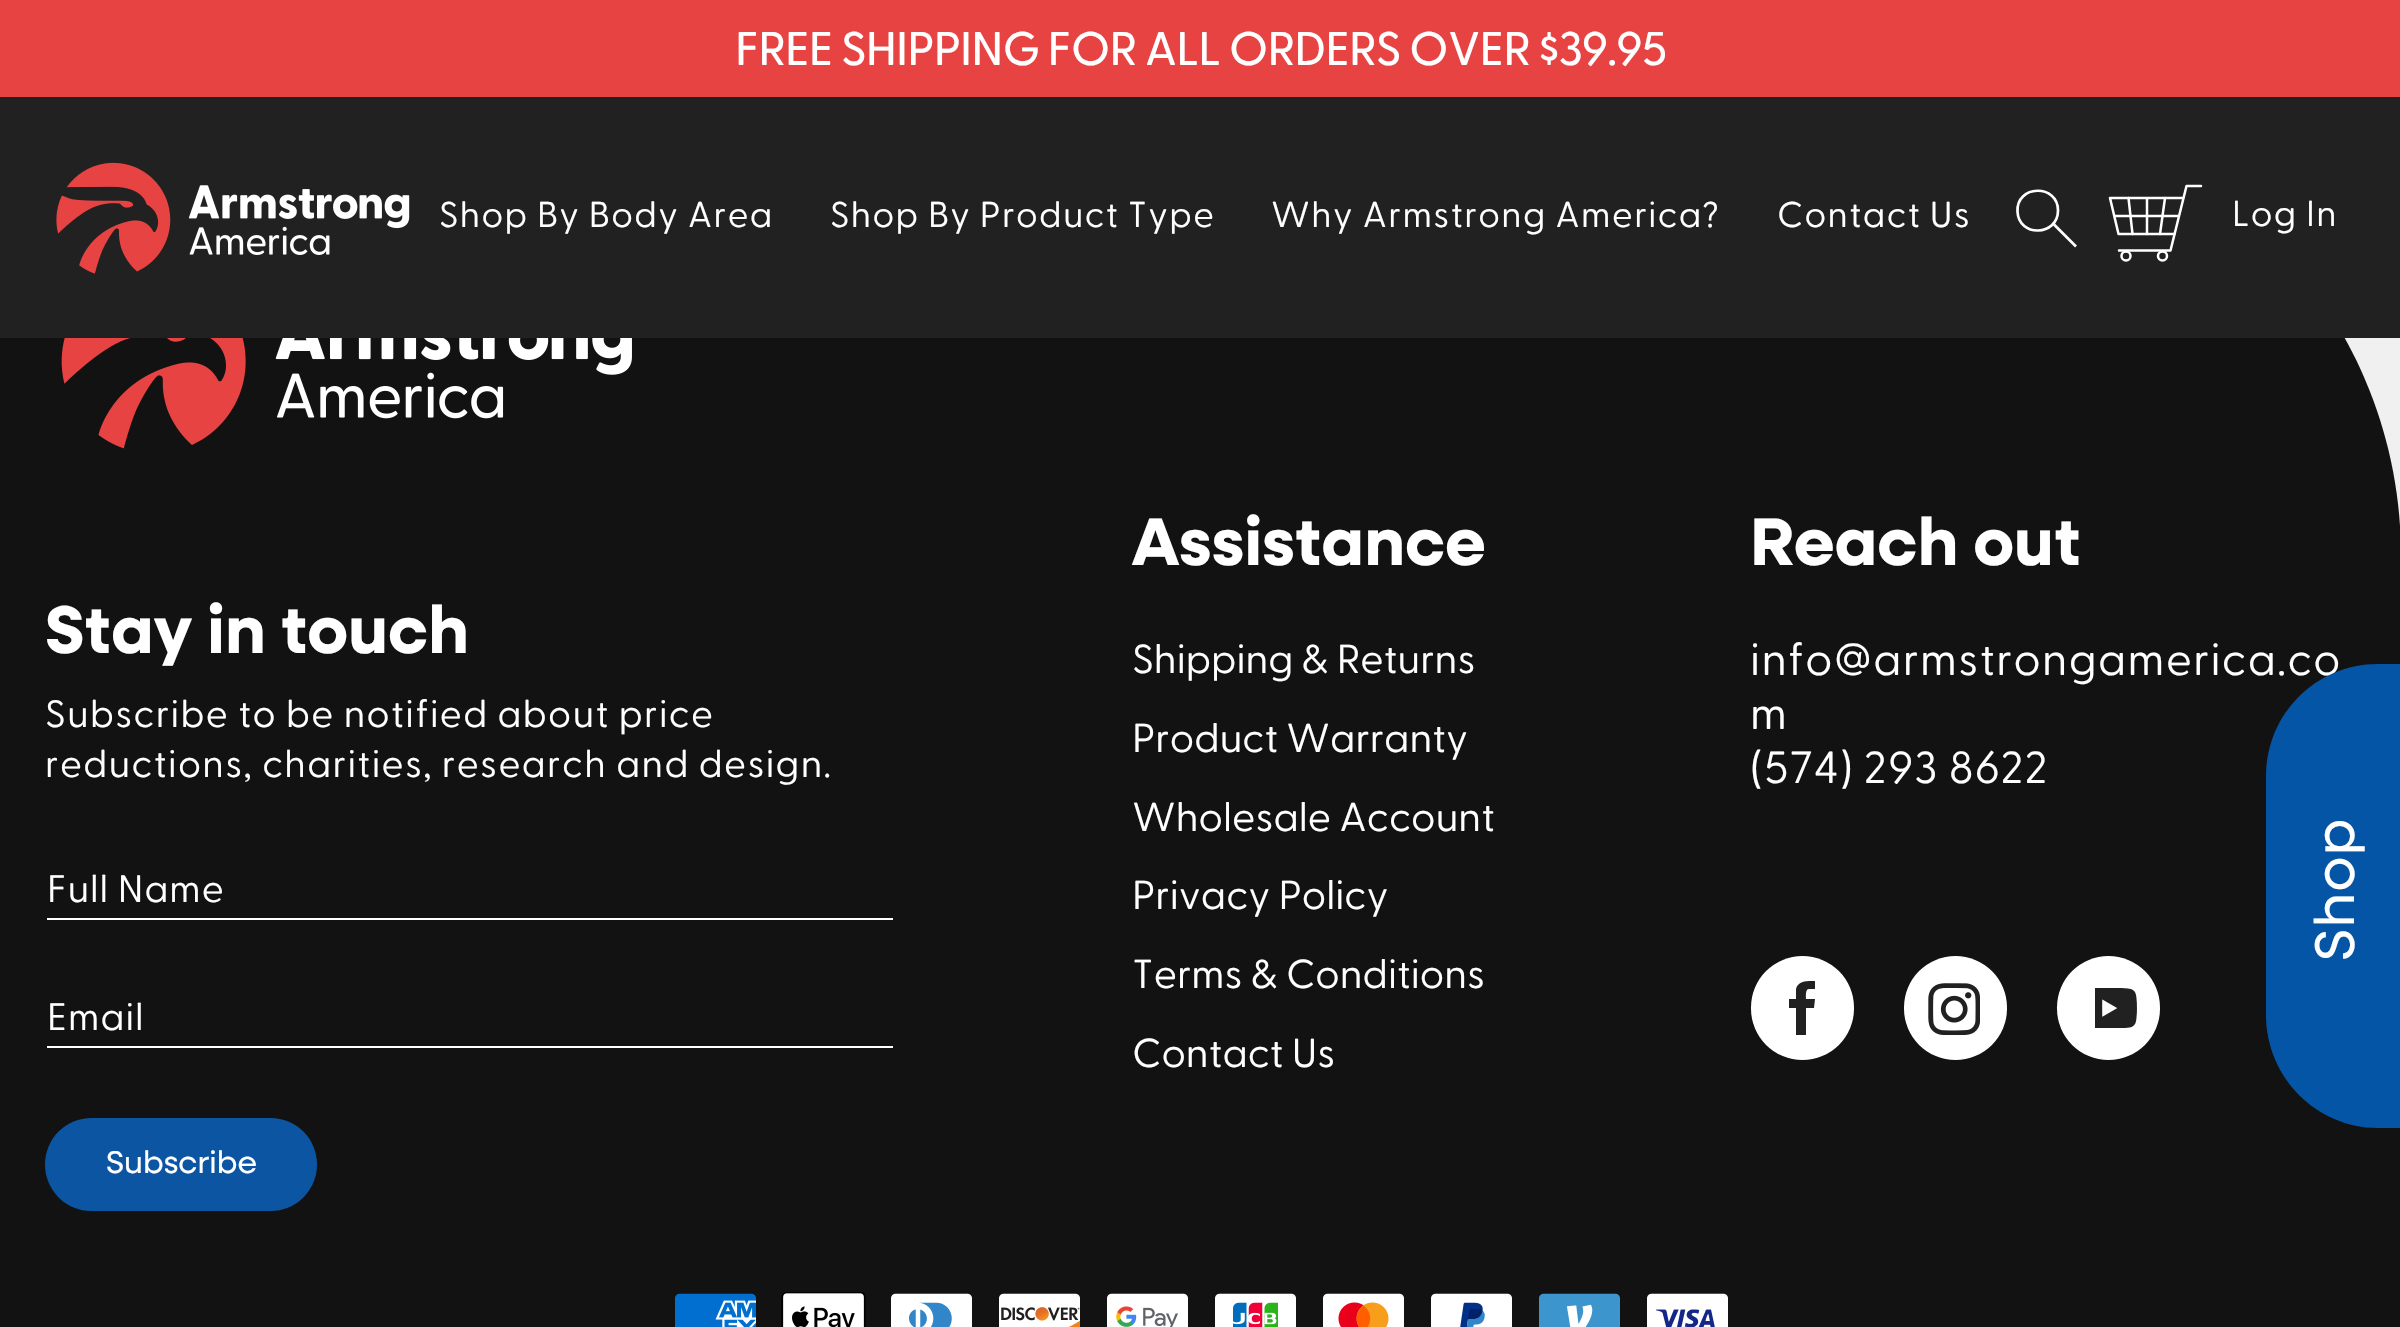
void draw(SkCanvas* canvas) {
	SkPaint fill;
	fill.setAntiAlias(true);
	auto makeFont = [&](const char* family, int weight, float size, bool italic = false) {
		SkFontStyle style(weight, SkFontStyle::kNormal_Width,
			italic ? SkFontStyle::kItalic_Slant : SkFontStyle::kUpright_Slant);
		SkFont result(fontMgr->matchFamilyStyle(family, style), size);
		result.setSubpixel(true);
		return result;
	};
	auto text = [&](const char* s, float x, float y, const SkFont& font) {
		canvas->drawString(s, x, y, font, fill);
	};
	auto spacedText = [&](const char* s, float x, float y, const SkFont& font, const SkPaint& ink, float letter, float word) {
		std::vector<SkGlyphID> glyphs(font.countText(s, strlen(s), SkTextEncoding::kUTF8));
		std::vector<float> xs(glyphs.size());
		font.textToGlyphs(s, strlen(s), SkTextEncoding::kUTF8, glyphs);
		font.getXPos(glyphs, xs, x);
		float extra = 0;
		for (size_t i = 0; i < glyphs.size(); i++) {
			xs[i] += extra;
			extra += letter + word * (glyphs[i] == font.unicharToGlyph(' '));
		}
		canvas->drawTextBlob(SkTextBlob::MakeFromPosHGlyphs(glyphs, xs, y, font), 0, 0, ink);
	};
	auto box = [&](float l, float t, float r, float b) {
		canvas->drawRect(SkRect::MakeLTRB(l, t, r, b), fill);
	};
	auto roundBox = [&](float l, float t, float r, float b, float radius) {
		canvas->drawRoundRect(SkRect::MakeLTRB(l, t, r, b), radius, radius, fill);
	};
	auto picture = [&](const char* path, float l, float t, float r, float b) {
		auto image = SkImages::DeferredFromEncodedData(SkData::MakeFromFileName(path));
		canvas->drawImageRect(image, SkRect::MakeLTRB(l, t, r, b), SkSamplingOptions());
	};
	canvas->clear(0xFFF0F0F1);
	fill.setColor(0xFFE84343);
	box(0, 0, 2400, 97);
	fill.setColor(0xFF121212);
	canvas->drawPath(SkPathBuilder().moveTo(0, 106).lineTo(1951, 106).cubicTo(2199.5f, 106, 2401, 307.5f, 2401, 556).lineTo(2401, 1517).lineTo(0, 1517).close().detach(), fill);
	fill.setColor(0xFF212121);
	box(0, 97, 2400, 338);
	picture("image0.png", 56, 162, 410, 274);
	fill.setStyle(SkPaint::kStroke_Style);
	fill.setStrokeWidth(2.7f);
	fill.setColor(0xFFFFFFFF);
	canvas->drawPath(SkPathBuilder().moveTo(2058, 210.5f).cubicTo(2058, 236.5f, 2018.5f, 237.5f, 2017.5f, 211.5f).cubicTo(2016, 184.5f, 2058, 183.5f, 2058, 210.5f).close().moveTo(2052.5f, 223).lineTo(2076, 246.5f).detach(), fill);
	fill.setStrokeWidth(2.5f);
	fill.setStrokeCap(SkPaint::kRound_Cap);
	fill.setStrokeJoin(SkPaint::kRound_Join);
	canvas->drawPath(SkPathBuilder().moveTo(2174.5f, 234).lineTo(2118.5f, 234).lineTo(2110, 198).lineTo(2183, 198).detach(), fill);
	canvas->drawPath(SkPathBuilder().moveTo(2119, 250.5f).lineTo(2170.5f, 250.5f).lineTo(2186.5f, 186).lineTo(2201, 186).detach(), fill);
	canvas->drawPath(SkPathBuilder().moveTo(2128.5f, 198).lineTo(2132.5f, 234).moveTo(2147, 234).lineTo(2147, 198.5f).moveTo(2160, 234).lineTo(2165, 198).detach(), fill);
	canvas->drawPath(SkPathBuilder().moveTo(2115, 216).lineTo(2178.5f, 216).detach(), fill);
	fill.setStrokeCap(SkPaint::kButt_Cap);
	fill.setStrokeJoin(SkPaint::kMiter_Join);
	canvas->drawCircle(2126, 256, 4.5f, fill);
	canvas->drawCircle(2162.5f, 256, 4.5f, fill);
	picture("image1.png", 61, 338, 632, 449);
	fill.setStyle(SkPaint::kFill_Style);
	box(47, 918, 893, 920);
	box(47, 1046, 893, 1048);
	fill.setColor(0xFF0C55A3);
	roundBox(45, 1118, 317, 1211, 46.5f);
	fill.setColor(0xFFFFFFFF);
	roundBox(1751, 956, 1854, 1060, 51.5f);
	fill.setColor(0xFF212121);
	canvas->drawPath(SkPathBuilder().moveTo(1809, 989).lineTo(1815, 989).lineTo(1815, 981).cubicTo(1809, 981, 1798, 980, 1796, 989).lineTo(1796, 999).lineTo(1789, 999).lineTo(1789, 1008).lineTo(1796, 1008).lineTo(1796, 1035).lineTo(1806, 1035).lineTo(1806, 1008).lineTo(1814, 1008).lineTo(1815, 999).lineTo(1806, 999).cubicTo(1806, 997, 1805, 989, 1809, 989).detach(), fill);
	fill.setColor(0xFFFFFFFF);
	roundBox(1904, 956, 2007, 1060, 51.5f);
	picture("image2.png", 1928, 983, 1980, 1035);
	roundBox(2057, 956, 2160, 1060, 51.5f);
	picture("image3.png", 2095, 988, 2137, 1028);
	picture("image4.png", 675, 1293, 756, 1327);
	picture("image5.png", 781, 1292, 866, 1327);
	picture("image6.png", 891, 1293, 972, 1327);
	picture("image7.png", 999, 1293, 1080, 1327);
	picture("image8.png", 1107, 1293, 1188, 1327);
	picture("image9.png", 1215, 1293, 1296, 1327);
	picture("image10.png", 1323, 1293, 1404, 1327);
	picture("image11.png", 1431, 1293, 1512, 1327);
	picture("image12.png", 1539, 1293, 1620, 1327);
	picture("image13.png", 1647, 1293, 1728, 1327);
	auto font1 = makeFont("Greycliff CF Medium", 500, 47.25f);
	spacedText("FREE SHIPPING FOR ALL ORDERS OVER $39.95", 735, 65, font1, fill, -0.9f, 0);
	auto font2 = makeFont("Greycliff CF", 400, 36);
	spacedText("Shop By Body Area", 439, 227, font2, fill, 1.35f, 0);
	spacedText("Shop By Product Type", 830, 227, font2, fill, 1.35f, 0);
	spacedText("Why Armstrong America?", 1271, 227, font2, fill, 1.35f, 0);
	spacedText("Contact Us", 1777, 227, font2, fill, 1.35f, 0);
	spacedText("Log In", 2232, 226, font2, fill, 1.35f, 0);
	auto font3 = makeFont("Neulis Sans", 700, 67.5f);
	text("Stay in touch", 45, 653, font3);
	auto font4 = makeFont("Greycliff CF", 400, 38.25f);
	spacedText("Subscribe to be notified about price", 45, 727, font4, fill, 1.35f, 0);
	spacedText("reductions, charities, research and design.", 45, 777, font4, fill, 1.35f, 0);
	spacedText("Full Name", 47, 902, font4, fill, 1, 0);
	spacedText("Email", 47, 1030, font4, fill, 1, 0);
	auto font5 = makeFont("Neulis Sans", 400, 31.5f);
	text("Subscribe", 106, 1173, font5);
	text("Assistance", 1132, 565, font3);
	auto font6 = makeFont("Greycliff CF", 400, 40.5f);
	text("Shipping & Returns", 1132, 673, font6);
	text("Product Warranty", 1132, 752, font6);
	text("Wholesale Account", 1132, 831, font6);
	text("Privacy Policy", 1132, 909, font6);
	text("Terms & Conditions", 1132, 988, font6);
	text("Contact Us", 1132, 1067, font6);
	text("Reach out", 1750, 565, font3);
	auto font7 = makeFont("Greycliff CF", 400, 45);
	spacedText("info@armstrongamerica.co", 1750, 675, font7, fill, 1.35f, 0);
	fill.setColor(0xFF0455A5);
	canvas->drawPath(SkPathBuilder().moveTo(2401, 1128).lineTo(2378, 1128).cubicTo(2316, 1128, 2266, 1077, 2266, 1015).lineTo(2266, 776).cubicTo(2266, 714, 2316, 664, 2378, 664).lineTo(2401, 664).close().detach(), fill);
	auto font8 = makeFont("Neulis Sans", 400, 56);
	fill.setColor(0xFFFFFFFF);
	canvas->save();
	canvas->rotate(-90, 2354, 961);
	spacedText("Shop", 2354, 961, font8, fill, 1.35f, 0);
	canvas->restore();
	spacedText("m", 1750, 729, font7, fill, 1.35f, 0);
	spacedText("(574) 293 8622", 1750, 783, font7, fill, 1.35f, 0);
}
